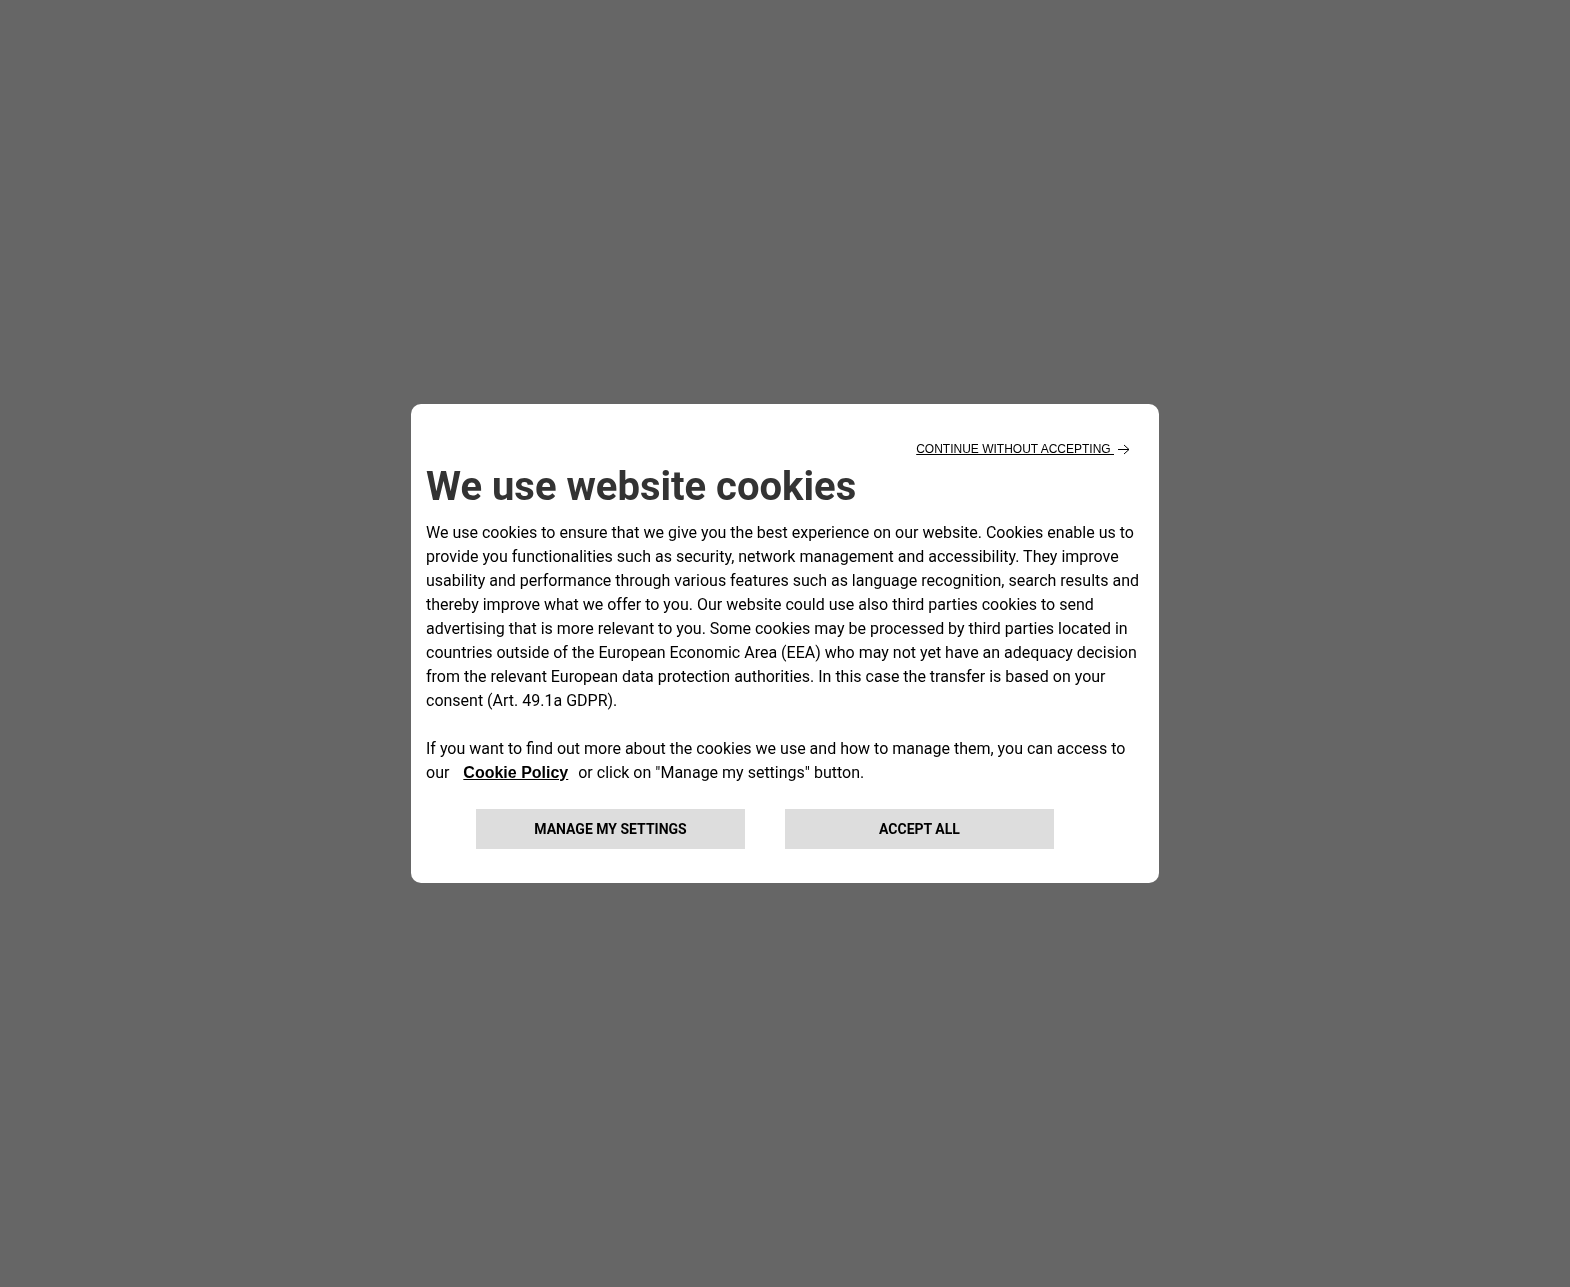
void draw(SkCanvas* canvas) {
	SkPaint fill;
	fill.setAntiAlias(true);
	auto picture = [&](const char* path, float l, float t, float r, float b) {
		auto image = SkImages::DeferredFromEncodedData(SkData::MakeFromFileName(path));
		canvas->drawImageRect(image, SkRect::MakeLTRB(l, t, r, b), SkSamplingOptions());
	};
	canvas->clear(0xFFFFFFFF);
	picture("image0.png", 0, 0, 1570, 1287);
}
